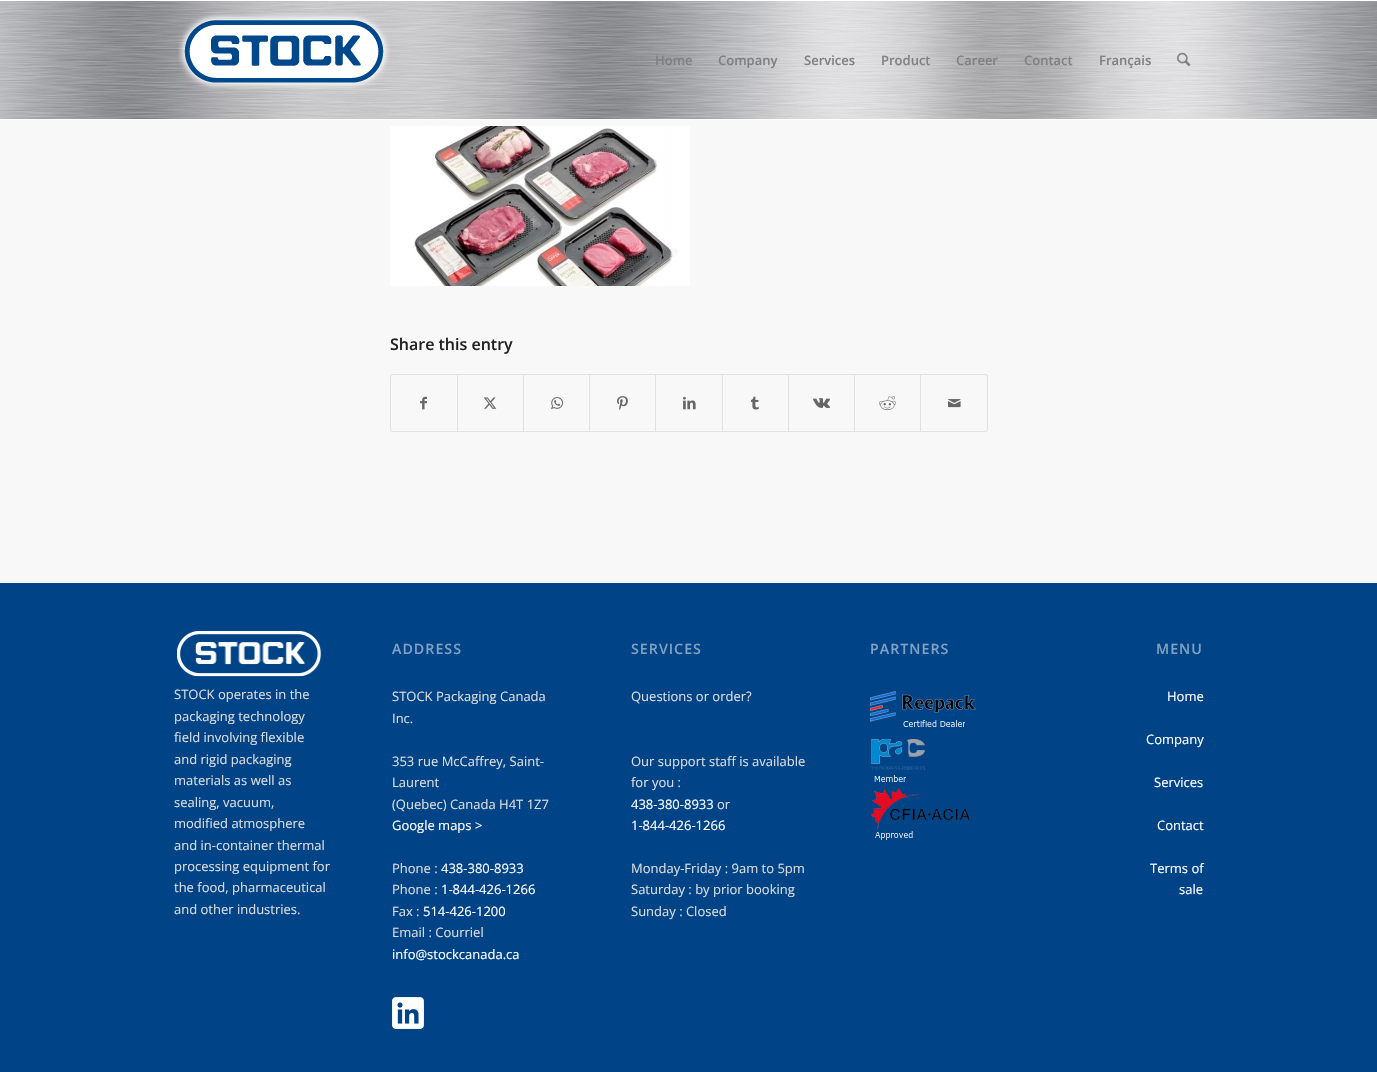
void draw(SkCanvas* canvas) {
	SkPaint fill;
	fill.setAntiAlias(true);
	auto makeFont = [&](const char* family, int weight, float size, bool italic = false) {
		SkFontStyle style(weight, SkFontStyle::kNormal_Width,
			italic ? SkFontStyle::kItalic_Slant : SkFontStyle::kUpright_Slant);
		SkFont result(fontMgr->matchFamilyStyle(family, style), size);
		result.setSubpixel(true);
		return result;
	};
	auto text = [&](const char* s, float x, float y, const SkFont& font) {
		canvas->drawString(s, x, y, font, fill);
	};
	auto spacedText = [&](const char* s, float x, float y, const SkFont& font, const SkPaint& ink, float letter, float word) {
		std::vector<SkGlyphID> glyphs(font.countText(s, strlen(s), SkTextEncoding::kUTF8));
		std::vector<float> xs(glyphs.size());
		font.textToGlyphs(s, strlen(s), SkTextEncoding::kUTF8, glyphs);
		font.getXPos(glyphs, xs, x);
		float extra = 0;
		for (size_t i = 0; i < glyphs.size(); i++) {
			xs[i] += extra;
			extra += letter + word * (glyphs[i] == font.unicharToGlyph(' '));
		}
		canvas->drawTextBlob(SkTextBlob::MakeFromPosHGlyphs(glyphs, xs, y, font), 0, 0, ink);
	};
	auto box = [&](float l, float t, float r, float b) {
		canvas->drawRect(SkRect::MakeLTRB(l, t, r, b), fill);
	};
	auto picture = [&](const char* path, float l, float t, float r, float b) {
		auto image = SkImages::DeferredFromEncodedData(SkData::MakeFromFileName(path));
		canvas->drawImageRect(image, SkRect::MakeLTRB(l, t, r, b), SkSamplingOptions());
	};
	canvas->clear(0xFFF8F8F8);
	picture("image0.png", 0, 1, 1377, 119);
	fill.setColor(0xFFFFFFFF);
	box(0, 0, 1377, 1);
	box(0, 119, 1377, 120);
	picture("image1.png", 178, 13, 390, 90);
	picture("image2.png", 1177, 52, 1191, 67);
	picture("image3.png", 390, 126, 690, 286);
	fill.setStyle(SkPaint::kStroke_Style);
	fill.setStrokeWidth(1);
	fill.setColor(0xFFE1E1E1);
	canvas->drawRoundRect(SkRect::MakeLTRB(390.5f, 374.5f, 987.5f, 431.5f), 2.5f, 2.5f, fill);
	picture("image4.png", 420, 396, 427, 410);
	fill.setStyle(SkPaint::kFill_Style);
	box(457, 375, 458, 431);
	picture("image5.png", 483, 397, 497, 409);
	box(523, 375, 524, 431);
	picture("image6.png", 551, 397, 563, 410);
	box(589, 375, 590, 431);
	picture("image7.png", 617, 396, 628, 410);
	box(655, 375, 656, 431);
	picture("image8.png", 683, 396, 696, 410);
	box(722, 375, 723, 431);
	picture("image9.png", 751, 396, 759, 410);
	box(788, 375, 789, 431);
	picture("image10.png", 813, 398, 830, 408);
	box(854, 375, 855, 431);
	picture("image11.png", 879, 396, 896, 411);
	box(920, 375, 921, 431);
	picture("image12.png", 948, 399, 961, 408);
	fill.setColor(0xFF004386);
	box(0, 583, 1377, 1072);
	picture("image13.png", 177, 631, 322, 677);
	picture("image14.png", 392, 997, 424, 1029);
	picture("image15.png", 870, 691, 976, 840);
	auto font1 = makeFont("Open Sans", 600, 13);
	fill.setColor(0xFF808080);
	text("Home", 655, 65, font1);
	text("Company", 718, 65, font1);
	text("Services", 804, 65, font1);
	text("Product", 881, 65, font1);
	text("Career", 956, 65, font1);
	text("Contact", 1024, 65, font1);
	text("Français", 1099, 65, font1);
	auto font2 = makeFont("Open Sans", 600, 16);
	fill.setColor(0xFF222222);
	text("Share this entry", 390, 350, font2);
	auto font3 = makeFont("Open Sans", 400, 13);
	fill.setColor(0xFFDDDDDD);
	text("STOCK operates in the", 174, 699, font3);
	text("packaging technology", 174, 721, font3);
	text("field involving flexible", 174, 742, font3);
	text("and rigid packaging", 174, 764, font3);
	text("materials as well as", 174, 785, font3);
	text("sealing, vacuum,", 174, 807, font3);
	text("modified atmosphere", 174, 828, font3);
	text("and in-container thermal", 174, 850, font3);
	text("processing equipment for", 174, 871, font3);
	text("the food, pharmaceutical", 174, 892, font3);
	text("and other industries.", 174, 914, font3);
	auto font4 = makeFont("Open Sans", 600, 14.25f);
	fill.setColor(0xFF80A1C3);
	spacedText("ADDRESS", 392, 654, font4, fill, 1, 0);
	fill.setColor(0xFFDDDDDD);
	text("STOCK Packaging Canada", 392, 701, font3);
	text("Inc.", 392, 723, font3);
	text("353 rue McCaffrey, Saint-", 392, 766, font3);
	text("Laurent", 392, 787, font3);
	text("(Quebec) Canada H4T 1Z7", 392, 809, font3);
	fill.setColor(0xFFFFFFFF);
	text("Google maps >", 392, 830, font3);
	fill.setColor(0xFFDDDDDD);
	text("Phone :", 392, 873, font3);
	fill.setColor(0xFFFFFFFF);
	text("438-380-8933", 441, 873, font3);
	fill.setColor(0xFFDDDDDD);
	text("Phone :", 392, 894, font3);
	fill.setColor(0xFFFFFFFF);
	text("1-844-426-1266", 441, 894, font3);
	fill.setColor(0xFFDDDDDD);
	text("Fax :", 392, 916, font3);
	fill.setColor(0xFFFFFFFF);
	text("514-426-1200", 423, 916, font3);
	fill.setColor(0xFFDDDDDD);
	text("Email : Courriel", 392, 937, font3);
	fill.setColor(0xFFFFFFFF);
	text("info@stockcanada.ca", 392, 959, font3);
	fill.setColor(0xFF80A1C3);
	spacedText("SERVICES", 631, 654, font4, fill, 1, 0);
	fill.setColor(0xFFDDDDDD);
	text("Questions or order?", 631, 701, font3);
	text("Our support staff is available", 631, 766, font3);
	text("for you :", 631, 787, font3);
	fill.setColor(0xFFFFFFFF);
	text("438-380-8933", 631, 809, font3);
	fill.setColor(0xFFDDDDDD);
	text("or", 717, 809, font3);
	fill.setColor(0xFFFFFFFF);
	text("1-844-426-1266", 631, 830, font3);
	fill.setColor(0xFFDDDDDD);
	text("Monday-Friday : 9am to 5pm", 631, 873, font3);
	text("Saturday : by prior booking", 631, 894, font3);
	text("Sunday : Closed", 631, 916, font3);
	fill.setColor(0xFF80A1C3);
	spacedText("PARTNERS", 870, 654, font4, fill, 1, 0);
	spacedText("MENU", 1156, 654, font4, fill, 1, 0);
	fill.setColor(0xFFFFFFFF);
	text("Home", 1167, 701, font3);
	text("Company", 1146, 744, font3);
	text("Services", 1154, 787, font3);
	text("Contact", 1157, 830, font3);
	text("Terms of", 1150, 873, font3);
	text("sale", 1179, 894, font3);
}
